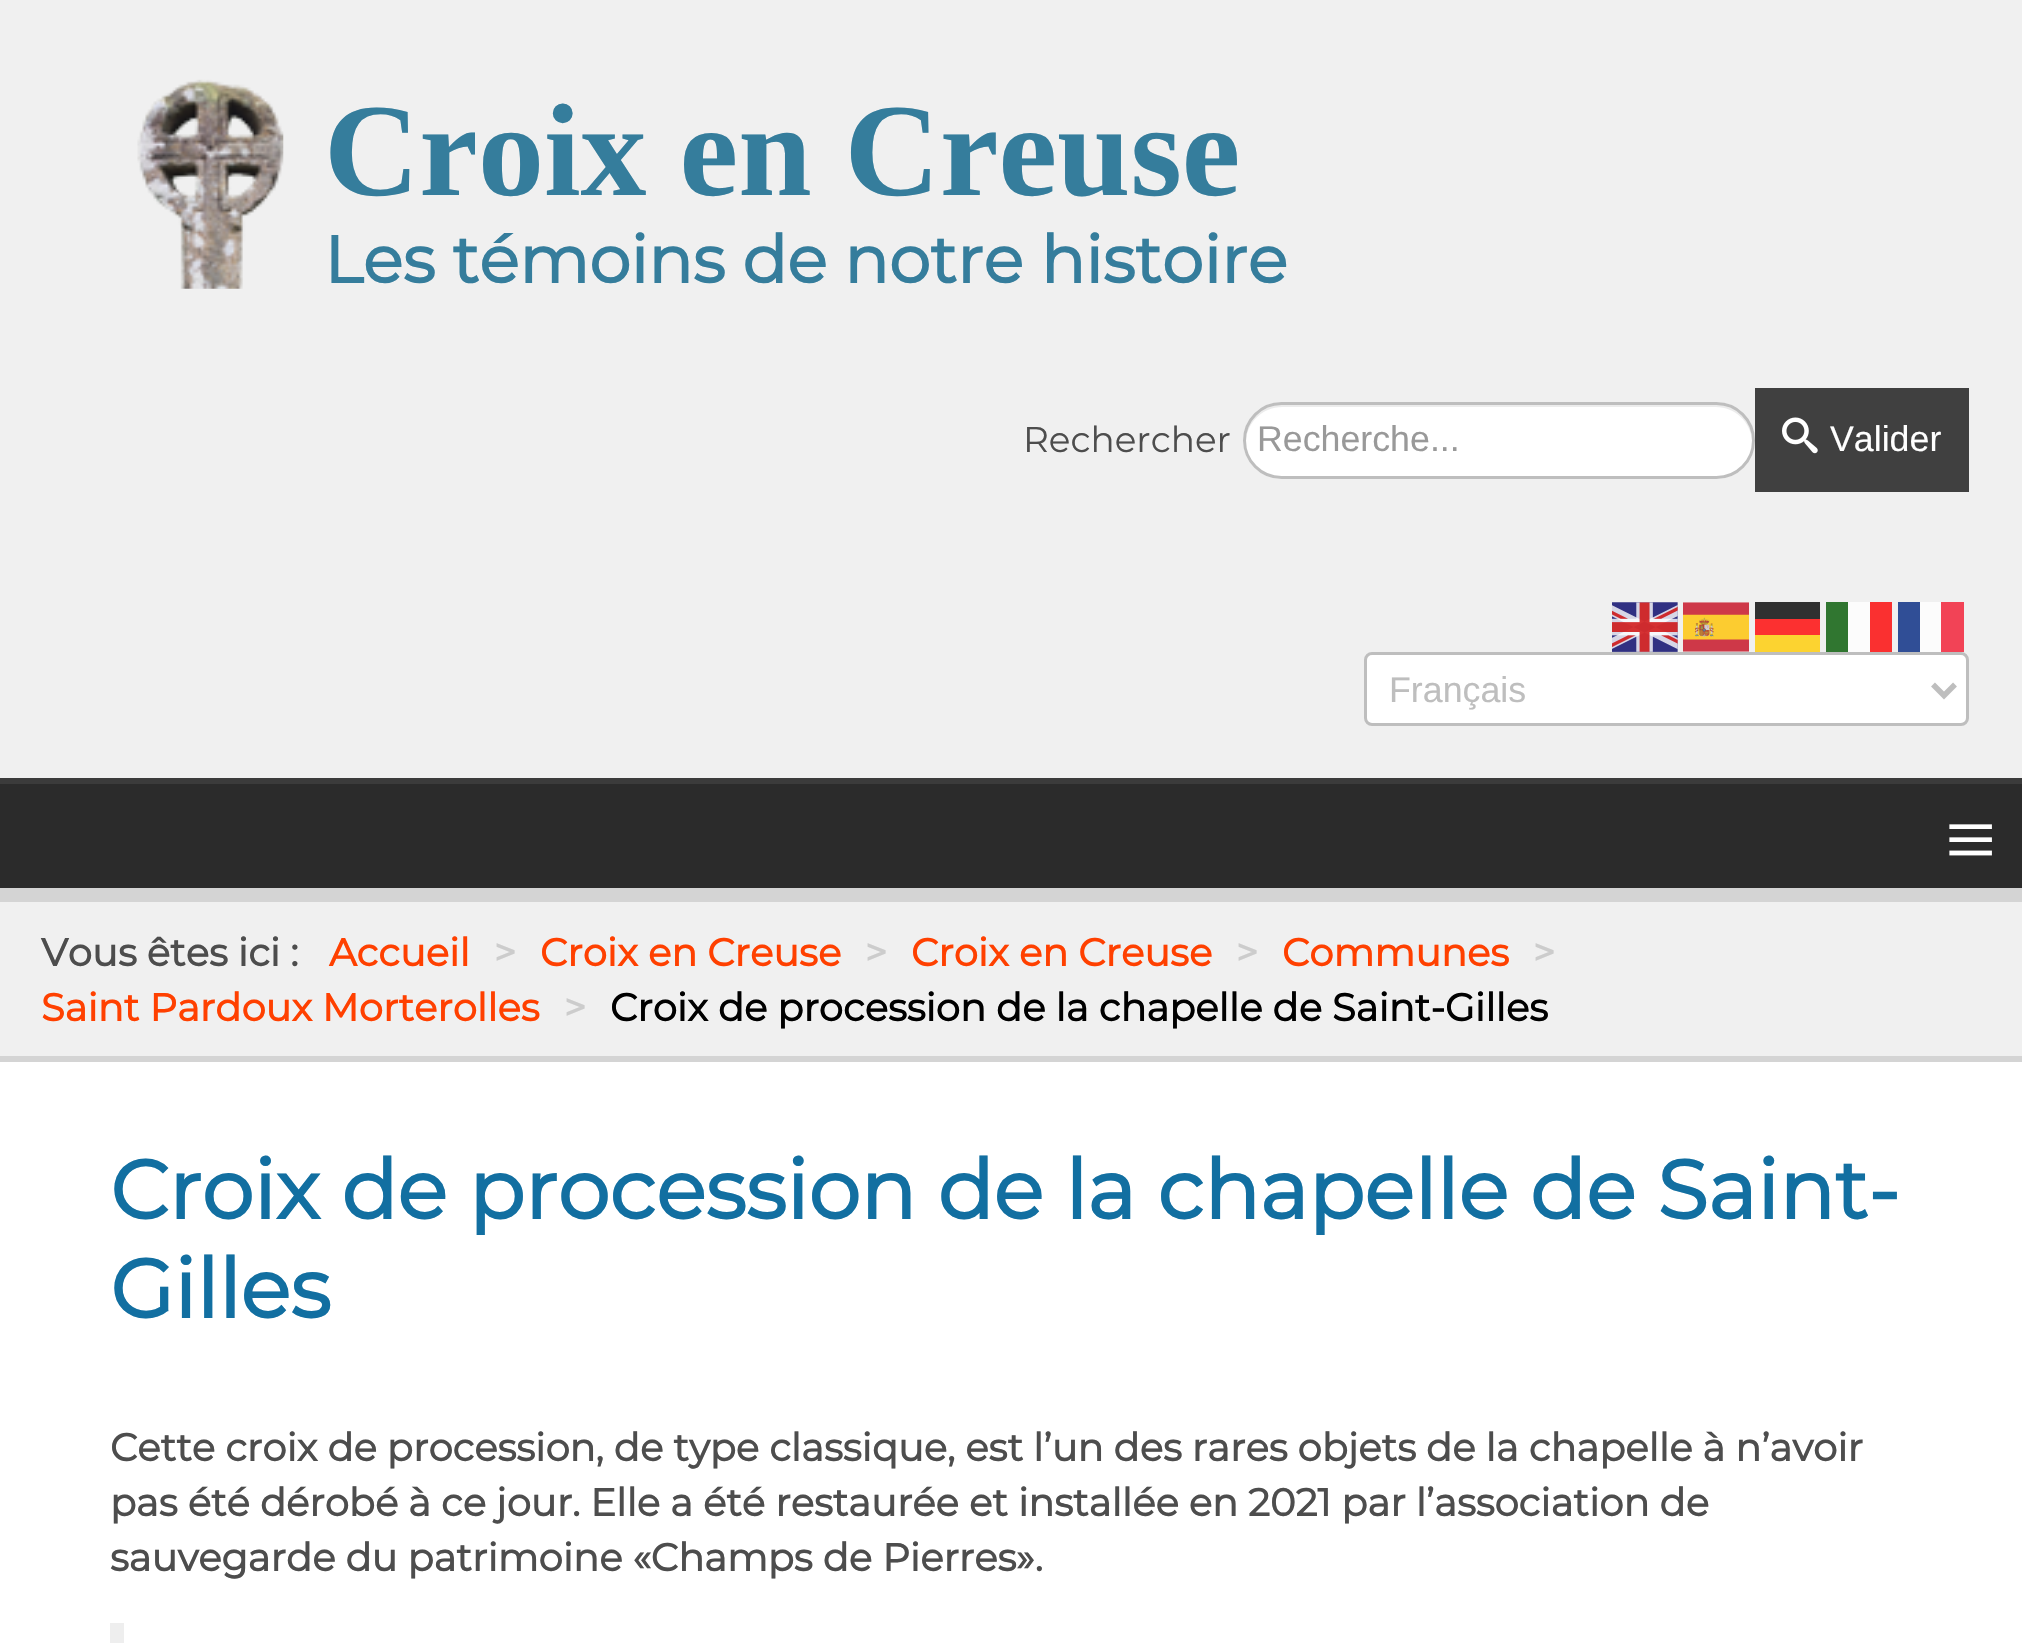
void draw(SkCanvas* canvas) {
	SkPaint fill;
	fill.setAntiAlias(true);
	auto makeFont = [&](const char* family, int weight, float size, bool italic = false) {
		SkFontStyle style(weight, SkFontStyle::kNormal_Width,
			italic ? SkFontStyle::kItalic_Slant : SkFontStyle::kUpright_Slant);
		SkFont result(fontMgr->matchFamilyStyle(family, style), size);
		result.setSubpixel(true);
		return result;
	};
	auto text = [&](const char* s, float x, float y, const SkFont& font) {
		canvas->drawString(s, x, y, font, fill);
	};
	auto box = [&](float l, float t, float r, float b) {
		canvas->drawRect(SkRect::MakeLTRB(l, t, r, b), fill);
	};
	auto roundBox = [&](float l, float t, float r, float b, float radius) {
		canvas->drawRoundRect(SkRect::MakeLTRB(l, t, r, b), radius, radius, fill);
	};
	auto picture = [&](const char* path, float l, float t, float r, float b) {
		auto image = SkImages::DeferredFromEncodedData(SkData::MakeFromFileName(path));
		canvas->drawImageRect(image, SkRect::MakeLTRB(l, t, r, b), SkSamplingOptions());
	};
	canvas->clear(0xFFD4D4D4);
	fill.setColor(0xFFF0F0F0);
	box(0, 0, 2022, 778);
	fill.setColor(0xFF3B3B3B);
	box(0, 778, 2022, 784);
	picture("image0.png", 137, 79, 284, 289);
	fill.setColor(0xFFFFFFFF);
	roundBox(1243, 402, 1755, 479, 38.5f);
	fill.setColor(0xFFECECEC);
	canvas->drawPath(SkPathBuilder().moveTo(1282, 407).lineTo(1716, 407).cubicTo(1735, 407, 1751, 422, 1752, 441).cubicTo(1753, 421, 1736, 404, 1716, 404).lineTo(1282, 404).cubicTo(1262, 404, 1245, 421, 1246, 441).cubicTo(1247, 422, 1263, 407, 1282, 407).close().detach(), fill);
	fill.setStyle(SkPaint::kStroke_Style);
	fill.setStrokeWidth(3);
	fill.setColor(0xFFBEBEBE);
	canvas->drawRoundRect(SkRect::MakeLTRB(1244.5f, 403.5f, 1753.5f, 477.5f), 37, 37, fill);
	fill.setStyle(SkPaint::kFill_Style);
	fill.setColor(0xFF404040);
	box(1755, 388, 1969, 492);
	picture("image1.png", 1782, 417, 1818, 454);
	picture("image2.png", 1612, 602, 1678, 652);
	picture("image3.png", 1683, 602, 1749, 652);
	fill.setColor(0xFF303030);
	box(1755, 602, 1820, 619);
	fill.setColor(0xFF307630);
	box(1826, 602, 1848, 652);
	fill.setColor(0xFFFCFCFC);
	box(1848, 602, 1870, 652);
	fill.setColor(0xFFFA3030);
	box(1870, 602, 1892, 652);
	fill.setColor(0xFF304E96);
	box(1898, 602, 1920, 652);
	fill.setColor(0xFFFCFCFC);
	box(1920, 602, 1941, 652);
	fill.setColor(0xFFF24356);
	box(1941, 602, 1964, 652);
	fill.setColor(0xFFFC3030);
	box(1755, 619, 1820, 635);
	fill.setColor(0xFFFCD330);
	box(1755, 635, 1820, 652);
	fill.setColor(0xFFFFFFFF);
	canvas->drawRoundRect(SkRect::MakeLTRB(1365.5f, 653.5f, 1967.5f, 724.5f), 6.5f, 6.5f, fill);
	fill.setStyle(SkPaint::kStroke_Style);
	fill.setColor(0xFFBEBEBE);
	canvas->drawRoundRect(SkRect::MakeLTRB(1365.5f, 653.5f, 1967.5f, 724.5f), 6.5f, 6.5f, fill);
	fill.setStrokeWidth(5.5f);
	canvas->drawPath(SkPathBuilder().moveTo(1933, 684.5f).lineTo(1944, 695.5f).lineTo(1955, 684.5f).detach(), fill);
	fill.setStyle(SkPaint::kFill_Style);
	fill.setColor(0xFF2B2B2B);
	box(0, 784, 2022, 888);
	fill.setColor(0xFFF0F0F0);
	box(0, 902, 2022, 1056);
	fill.setColor(0xFFFFFFFF);
	box(0, 1062, 2022, 1643);
	fill.setColor(0xFFEEEEEE);
	box(110, 1623, 124, 1643);
	auto font1 = makeFont("Liberation Serif", 700, 132);
	fill.setColor(0xFF357D9C);
	text("Croix en Creuse", 324, 195, font1);
	auto font2 = makeFont("Montserrat", 700, 66);
	text("Les témoins de notre histoire", 324, 283, font2);
	auto font3 = makeFont("Montserrat", 100, 35.75f);
	fill.setColor(0xFF4D4D4D);
	text("Rechercher", 1023, 452, font3);
	auto font4 = makeFont("Liberation Sans", 400, 35.75f);
	fill.setColor(0xFF999999);
	text("Recherche...", 1257, 451, font4);
	fill.setColor(0xFFFFFFFF);
	text("Valider", 1830, 451, font4);
	fill.setColor(0xFFBEBEBE);
	text("Français", 1389, 702, font4);
	auto font5 = makeFont("Liberation Serif", 400, 91);
	fill.setColor(0xFFFFFFFF);
	text("≡", 1945, 870, font5);
	auto font6 = makeFont("Montserrat", 700, 38.5f);
	fill.setColor(0xFF4D4D4D);
	text("Vous êtes ici :", 41, 966, font6);
	fill.setColor(0xFFFF4000);
	text("Accueil", 329, 966, font6);
	fill.setColor(0xFFCCCCCC);
	text(">", 494, 966, font6);
	fill.setColor(0xFFFF4000);
	text("Croix en Creuse", 540, 966, font6);
	fill.setColor(0xFFCCCCCC);
	text(">", 865, 966, font6);
	fill.setColor(0xFFFF4000);
	text("Croix en Creuse", 911, 966, font6);
	fill.setColor(0xFFCCCCCC);
	text(">", 1236, 966, font6);
	fill.setColor(0xFFFF4000);
	text("Communes", 1282, 966, font6);
	fill.setColor(0xFFCCCCCC);
	text(">", 1533, 966, font6);
	fill.setColor(0xFFFF4000);
	text("Saint Pardoux Morterolles", 41, 1021, font6);
	fill.setColor(0xFFCCCCCC);
	text(">", 564, 1021, font6);
	fill.setColor(0xFF000000);
	text("Croix de procession de la chapelle de Saint-Gilles", 610, 1021, font6);
	auto font7 = makeFont("Montserrat", 700, 82.5f);
	fill.setColor(0xFF126FA1);
	text("Croix de procession de la chapelle de Saint-", 110, 1219, font7);
	text("Gilles", 110, 1318, font7);
	fill.setColor(0xFF4D4D4D);
	text("Cette croix de procession, de type classique, est l’un des rares objets de la chapelle à n’avoir", 110, 1461, font6);
	text("pas été dérobé à ce jour. Elle a été restaurée et installée en 2021 par l’association de", 110, 1516, font6);
	text("sauvegarde du patrimoine « Champs de Pierres ».", 110, 1571, font6);
}
